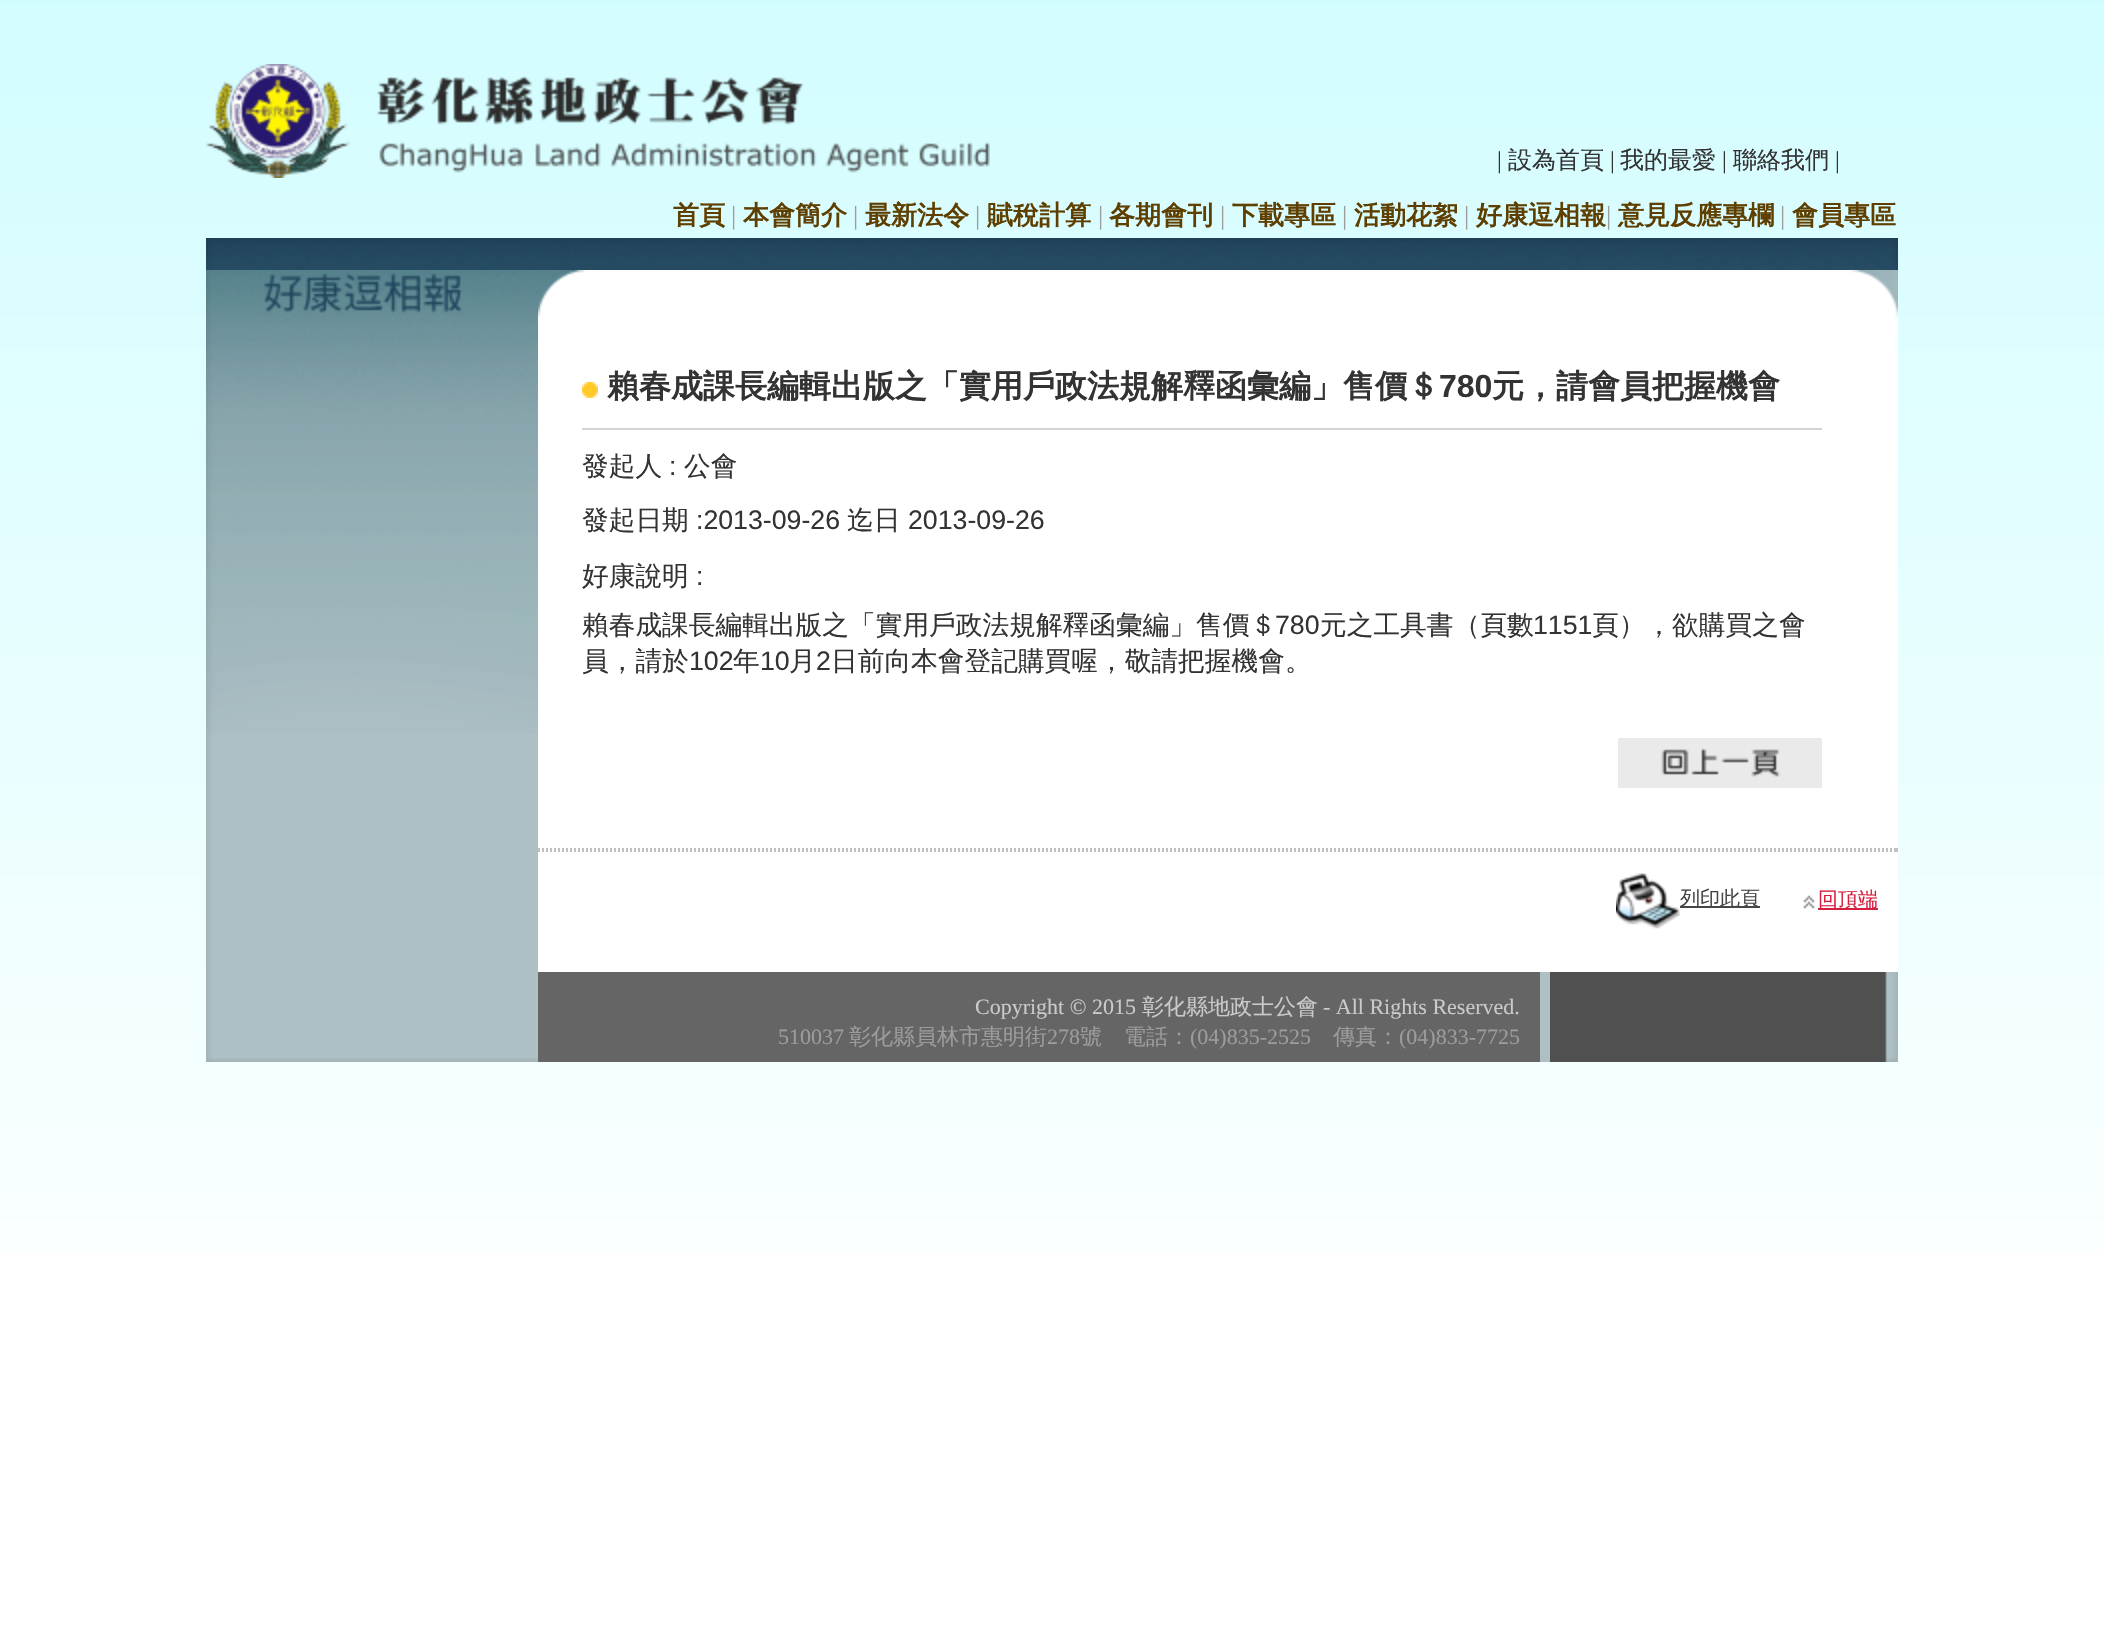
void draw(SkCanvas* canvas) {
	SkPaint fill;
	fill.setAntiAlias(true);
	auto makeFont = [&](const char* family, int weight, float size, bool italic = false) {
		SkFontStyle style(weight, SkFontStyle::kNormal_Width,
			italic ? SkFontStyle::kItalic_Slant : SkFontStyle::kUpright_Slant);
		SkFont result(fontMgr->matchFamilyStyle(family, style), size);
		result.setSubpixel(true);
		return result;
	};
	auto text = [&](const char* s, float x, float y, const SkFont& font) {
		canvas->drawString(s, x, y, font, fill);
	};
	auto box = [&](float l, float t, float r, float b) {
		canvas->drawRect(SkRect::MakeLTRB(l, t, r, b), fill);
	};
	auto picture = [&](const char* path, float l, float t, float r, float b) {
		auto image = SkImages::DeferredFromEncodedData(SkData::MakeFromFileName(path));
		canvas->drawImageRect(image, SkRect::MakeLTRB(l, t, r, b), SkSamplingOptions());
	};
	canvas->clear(0xFFFFFFFF);
	picture("image0.png", 0, 0, 2104, 1250);
	picture("image1.png", 150, 0, 1954, 1090);
	picture("image2.png", 206, 64, 990, 178);
	picture("image3.png", 206, 238, 1898, 270);
	picture("image4.png", 206, 734, 538, 972);
	picture("image5.png", 206, 270, 538, 318);
	picture("image6.png", 206, 318, 538, 734);
	fill.setColor(0xFFFFFFFF);
	box(538, 318, 1898, 972);
	picture("image7.png", 538, 270, 1898, 318);
	picture("image8.png", 582, 382, 598, 398);
	fill.setColor(0xFFD4D4D4);
	box(582, 428, 1822, 430);
	picture("image9.png", 1618, 738, 1822, 788);
	fill.setStyle(SkPaint::kStroke_Style);
	fill.setStrokeWidth(2);
	fill.setColor(0xFFC0C0C0);
	fill.setPathEffect(SkDashPathEffect::Make({{2, 2}}, 0));
	canvas->drawPath(SkPathBuilder().moveTo(538, 849).lineTo(1898, 849).detach(), fill);
	fill.setPathEffect(nullptr);
	fill.setStyle(SkPaint::kFill_Style);
	box(1896, 848, 1898, 852);
	fill.setStyle(SkPaint::kStroke_Style);
	fill.setPathEffect(SkDashPathEffect::Make({{2, 2}}, 0));
	canvas->drawPath(SkPathBuilder().moveTo(538, 851).lineTo(1898, 851).detach(), fill);
	fill.setPathEffect(nullptr);
	picture("image10.png", 1616, 873, 1680, 929);
	fill.setStyle(SkPaint::kFill_Style);
	fill.setColor(0xFF464646);
	box(1680, 906, 1760, 908);
	picture("image11.png", 1803, 895, 1815, 909);
	fill.setColor(0xFFD42040);
	box(1818, 908, 1878, 910);
	picture("image12.png", 206, 972, 538, 1058);
	picture("image13.png", 206, 1058, 538, 1062);
	fill.setColor(0xFF656565);
	box(538, 972, 1540, 1062);
	fill.setColor(0xFFAEC0C4);
	box(1540, 972, 1550, 1062);
	picture("image14.png", 1550, 972, 1898, 1062);
	picture("image15.png", 1886, 1058, 1898, 1062);
	auto font1 = makeFont("Liberation Serif", 400, 24);
	fill.setColor(0xFF333333);
	text("|", 1497, 168, font1);
	auto font2 = makeFont("WenQuanYi Zen Hei", 500, 24);
	text("設為首頁", 1508, 168, font2);
	text("|", 1610, 168, font1);
	text("我的最愛", 1620, 168, font2);
	text("|", 1722, 168, font1);
	text("聯絡我們", 1733, 168, font2);
	text("|", 1835, 168, font1);
	auto font3 = makeFont("WenQuanYi Zen Hei", 700, 26);
	fill.setColor(0xFF5E3F00);
	text("首頁", 673, 224, font3);
	auto font4 = makeFont("Liberation Serif", 400, 26);
	fill.setColor(0xFF9C9C9C);
	text("|", 731, 224, font4);
	fill.setColor(0xFF5E3F00);
	text("本會簡介", 743, 224, font3);
	fill.setColor(0xFF9C9C9C);
	text("|", 853, 224, font4);
	fill.setColor(0xFF5E3F00);
	text("最新法令", 865, 224, font3);
	fill.setColor(0xFF9C9C9C);
	text("|", 975, 224, font4);
	fill.setColor(0xFF5E3F00);
	text("賦稅計算", 987, 224, font3);
	fill.setColor(0xFF9C9C9C);
	text("|", 1098, 224, font4);
	fill.setColor(0xFF5E3F00);
	text("各期會刊", 1109, 224, font3);
	fill.setColor(0xFF9C9C9C);
	text("|", 1220, 224, font4);
	fill.setColor(0xFF5E3F00);
	text("下載專區", 1232, 224, font3);
	fill.setColor(0xFF9C9C9C);
	text("|", 1342, 224, font4);
	fill.setColor(0xFF5E3F00);
	text("活動花絮", 1354, 224, font3);
	fill.setColor(0xFF9C9C9C);
	text("|", 1464, 224, font4);
	fill.setColor(0xFF5E3F00);
	text("好康逗相報", 1476, 224, font3);
	fill.setColor(0xFF9C9C9C);
	text("|", 1606, 224, font4);
	fill.setColor(0xFF5E3F00);
	text("意見反應專欄", 1618, 224, font3);
	fill.setColor(0xFF9C9C9C);
	text("|", 1780, 224, font4);
	fill.setColor(0xFF5E3F00);
	text("會員專區", 1792, 224, font3);
	auto font5 = makeFont("WenQuanYi Zen Hei", 700, 32);
	fill.setColor(0xFF333333);
	text("賴春成課長編輯出版之「實用戶政法規解釋函彙編」售價＄", 607, 397, font5);
	auto font6 = makeFont("Liberation Sans", 700, 32);
	text("780", 1439, 397, font6);
	text("元，請會員把握機會", 1492, 397, font5);
	auto font7 = makeFont("WenQuanYi Zen Hei", 500, 26.7f);
	text("發起人", 582, 475, font7);
	auto font8 = makeFont("Liberation Sans", 400, 26.7f);
	text(":", 669, 475, font8);
	text("公會", 684, 475, font7);
	text("發起日期", 582, 529, font7);
	text(":2013-09-26", 696, 529, font8);
	text("迄日", 847, 529, font7);
	text("2013-09-26", 908, 529, font8);
	text("好康說明", 582, 585, font7);
	text(":", 696, 585, font8);
	text("賴春成課長編輯出版之「實用戶政法規解釋函彙編」售價＄", 582, 634, font7);
	text("780", 1275, 634, font8);
	text("元之工具書（頁數", 1320, 634, font7);
	text("1151", 1533, 634, font8);
	text("頁），欲購買之會", 1592, 634, font7);
	text("員，請於", 582, 670, font7);
	text("102", 689, 670, font8);
	text("年", 733, 670, font7);
	text("10", 760, 670, font8);
	text("月", 789, 670, font7);
	text("2", 816, 670, font8);
	text("日前向本會登記購買喔，敬請把握機會。", 831, 670, font7);
	auto font9 = makeFont("WenQuanYi Zen Hei", 500, 20);
	fill.setColor(0xFF464646);
	text("列印此頁", 1680, 905, font9);
	fill.setColor(0xFFD42040);
	text("回頂端", 1818, 906, font9);
	auto font10 = makeFont("Liberation Serif", 400, 22);
	fill.setColor(0xFFCACACA);
	text("Copyright © 2015", 975, 1014, font10);
	auto font11 = makeFont("WenQuanYi Zen Hei", 500, 22);
	text("彰化縣地政士公會", 1142, 1014, font11);
	text("- All Rights Reserved.", 1323, 1014, font10);
	fill.setColor(0xFF9C9C9C);
	text("510037", 778, 1044, font10);
	text("彰化縣員林市惠明街", 849, 1044, font11);
	text("278", 1047, 1044, font10);
	text("號　電話：", 1080, 1044, font11);
	text("(04)835-2525", 1190, 1044, font10);
	text("傳真：", 1333, 1044, font11);
	text("(04)833-7725", 1399, 1044, font10);
}
